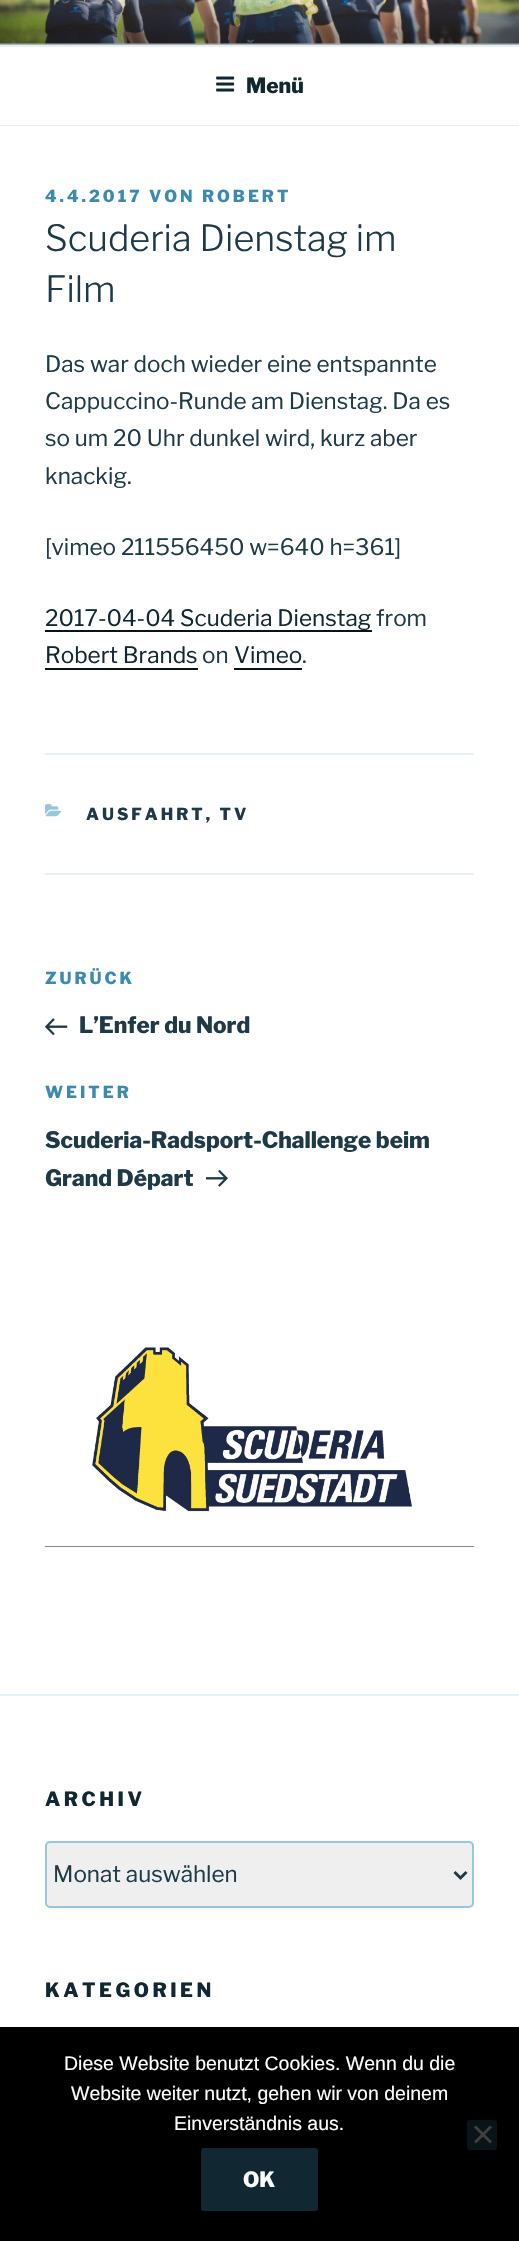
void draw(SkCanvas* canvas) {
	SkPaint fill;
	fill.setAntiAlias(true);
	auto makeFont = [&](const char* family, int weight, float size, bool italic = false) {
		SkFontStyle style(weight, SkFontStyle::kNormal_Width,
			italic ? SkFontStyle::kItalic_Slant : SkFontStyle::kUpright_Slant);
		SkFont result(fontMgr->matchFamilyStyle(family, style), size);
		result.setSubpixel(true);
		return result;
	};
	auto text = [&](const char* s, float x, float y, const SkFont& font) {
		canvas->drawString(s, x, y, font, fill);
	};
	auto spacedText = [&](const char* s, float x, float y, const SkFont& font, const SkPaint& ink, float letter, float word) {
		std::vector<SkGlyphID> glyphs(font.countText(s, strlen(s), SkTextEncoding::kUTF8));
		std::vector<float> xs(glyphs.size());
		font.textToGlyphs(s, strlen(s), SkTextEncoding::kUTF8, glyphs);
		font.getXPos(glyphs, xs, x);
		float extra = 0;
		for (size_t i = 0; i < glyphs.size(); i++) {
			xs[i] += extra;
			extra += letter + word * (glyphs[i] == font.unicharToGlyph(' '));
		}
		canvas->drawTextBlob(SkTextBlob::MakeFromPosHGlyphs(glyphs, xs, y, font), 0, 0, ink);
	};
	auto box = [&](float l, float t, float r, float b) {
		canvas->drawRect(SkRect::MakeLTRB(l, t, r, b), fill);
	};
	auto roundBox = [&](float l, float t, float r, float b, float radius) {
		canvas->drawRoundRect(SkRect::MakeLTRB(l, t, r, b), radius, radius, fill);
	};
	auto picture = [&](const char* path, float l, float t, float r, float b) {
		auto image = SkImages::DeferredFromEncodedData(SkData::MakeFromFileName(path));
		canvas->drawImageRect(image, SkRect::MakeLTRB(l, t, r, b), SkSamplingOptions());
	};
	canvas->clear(0xFFF7FBFC);
	picture("image0.png", 0, 0, 519, 44);
	{
		const SkColor colors[] = {0x00000000, 0x4D000000, 0x4D000000};
		const float stops[] = {0, 0.75f, 1};
		const SkPoint ends[] = {{260, 0}, {260, 45}};
		fill.setShader(SkGradientShader::MakeLinear(ends, colors, stops, 3, SkTileMode::kClamp));
		fill.setAlpha(255);
	}
	box(0, 2, 519, 45);
	fill.setShader(nullptr);
	fill.setColor(0xFFFFFFFF);
	box(0, 47, 519, 125);
	fill.setColor(0xFFE4F0F6);
	box(0, 45, 519, 47);
	box(0, 125, 519, 126);
	picture("image1.png", 216, 76, 235, 92);
	fill.setColor(0xFFFFFFFF);
	box(0, 126, 519, 2027);
	fill.setColor(0xFF081217);
	box(45, 630, 372, 632);
	box(45, 668, 198, 670);
	box(234, 668, 302, 670);
	fill.setColor(0xFFE4F0F6);
	box(45, 753, 474, 755);
	box(45, 873, 474, 875);
	picture("image2.png", 45, 804, 62, 817);
	picture("image3.png", 45, 1018, 68, 1036);
	picture("image4.png", 206, 1169, 228, 1187);
	fill.setColor(0xFF081217);
	box(45, 1546, 474, 1547);
	picture("image5.png", 45, 1347, 474, 1547);
	fill.setColor(0xFFE4F0F6);
	box(0, 1694, 519, 1696);
	fill.setColor(0xFFEFEFEF);
	canvas->drawRoundRect(SkRect::MakeLTRB(46, 1842, 473, 1907), 4, 4, fill);
	fill.setStyle(SkPaint::kStroke_Style);
	fill.setStrokeWidth(2);
	fill.setColor(0xFF98C7DD);
	canvas->drawRoundRect(SkRect::MakeLTRB(46, 1842, 473, 1907), 4, 4, fill);
	fill.setStrokeWidth(3);
	fill.setColor(0xFF1F3A47);
	canvas->drawPath(SkPathBuilder().moveTo(454.5f, 1872).lineTo(460.5f, 1878).lineTo(466.5f, 1872).detach(), fill);
	fill.setStyle(SkPaint::kFill_Style);
	fill.setColor(0xFF000000);
	box(0, 2027, 519, 2241);
	fill.setColor(0xFF091419);
	roundBox(467, 2120, 497, 2150, 3);
	fill.setColor(0xFF404040);
	canvas->drawPath(SkPathBuilder().moveTo(490, 2125.5f).lineTo(492, 2127.5f).lineTo(476, 2143.5f).lineTo(474, 2141.5f).close().detach(), fill);
	canvas->drawPath(SkPathBuilder().moveTo(474, 2127.5f).lineTo(476, 2125.5f).lineTo(492, 2141.5f).lineTo(490, 2143.5f).close().detach(), fill);
	fill.setColor(0xFF112732);
	roundBox(201, 2148, 318, 2211, 3);
	auto font1 = makeFont("Libre Franklin", 100, 21);
	text("Menü", 246, 93, font1);
	auto font2 = makeFont("Libre Franklin", 100, 16.5f);
	fill.setColor(0xFF3B8BB0);
	spacedText("4.4.2017 VON ROBERT", 45, 202, font2, fill, 3, 0);
	auto font3 = makeFont("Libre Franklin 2", 100, 36);
	fill.setColor(0xFF1F3A47);
	text("Scuderia Dienstag im", 45, 251, font3);
	text("Film", 45, 302, font3);
	auto font4 = makeFont("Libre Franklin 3", 100, 22.5f);
	text("Das war doch wieder eine entspannte", 45, 372, font4);
	text("Cappuccino-Runde am Dienstag. Da es", 45, 409, font4);
	text("so um 20 Uhr dunkel wird, kurz aber", 45, 446, font4);
	text("knackig.", 45, 484, font4);
	text("[vimeo 211556450 w=640 h=361]", 45, 555, font4);
	fill.setColor(0xFF112732);
	text("2017-04-04 Scuderia Dienstag", 45, 626, font4);
	fill.setColor(0xFF1F3A47);
	text("from", 376, 626, font4);
	fill.setColor(0xFF112732);
	text("Robert Brands", 45, 663, font4);
	fill.setColor(0xFF1F3A47);
	text("on", 202, 663, font4);
	fill.setColor(0xFF112732);
	text("Vimeo", 234, 663, font4);
	fill.setColor(0xFF1F3A47);
	text(".", 302, 663, font4);
	spacedText("AUSFAHRT, TV", 86, 820, font2, fill, 3, 0);
	fill.setColor(0xFF3B8BB0);
	spacedText("ZURÜCK", 45, 984, font2, fill, 3, 0);
	auto font5 = makeFont("Libre Franklin", 100, 22.5f);
	fill.setColor(0xFF1F3A47);
	text("L’Enfer du Nord", 79, 1033, font5);
	fill.setColor(0xFF3B8BB0);
	spacedText("WEITER", 45, 1098, font2, fill, 3, 0);
	fill.setColor(0xFF1F3A47);
	text("Scuderia-Radsport-Challenge beim", 45, 1148, font5);
	text("Grand Départ", 45, 1186, font5);
	auto font6 = makeFont("Libre Franklin", 100, 19.5f);
	fill.setColor(0xFF112732);
	spacedText("ARCHIV", 45, 1806, font6, fill, 3.5f, 0);
	fill.setColor(0xFF1F3A47);
	text("Monat auswählen", 53, 1882, font4);
	fill.setColor(0xFF112732);
	spacedText("KATEGORIEN", 45, 1997, font6, fill, 3.5f, 0);
	auto font7 = makeFont("Liberation Sans", 400, 19.5f);
	fill.setColor(0xFFFFFFFF);
	text("Diese Website benutzt Cookies. Wenn du die", 64, 2070, font7);
	text("Website weiter nutzt, gehen wir von deinem", 71, 2100, font7);
	text("Einverständnis aus.", 174, 2130, font7);
	text("OK", 243, 2187, font1);
}
